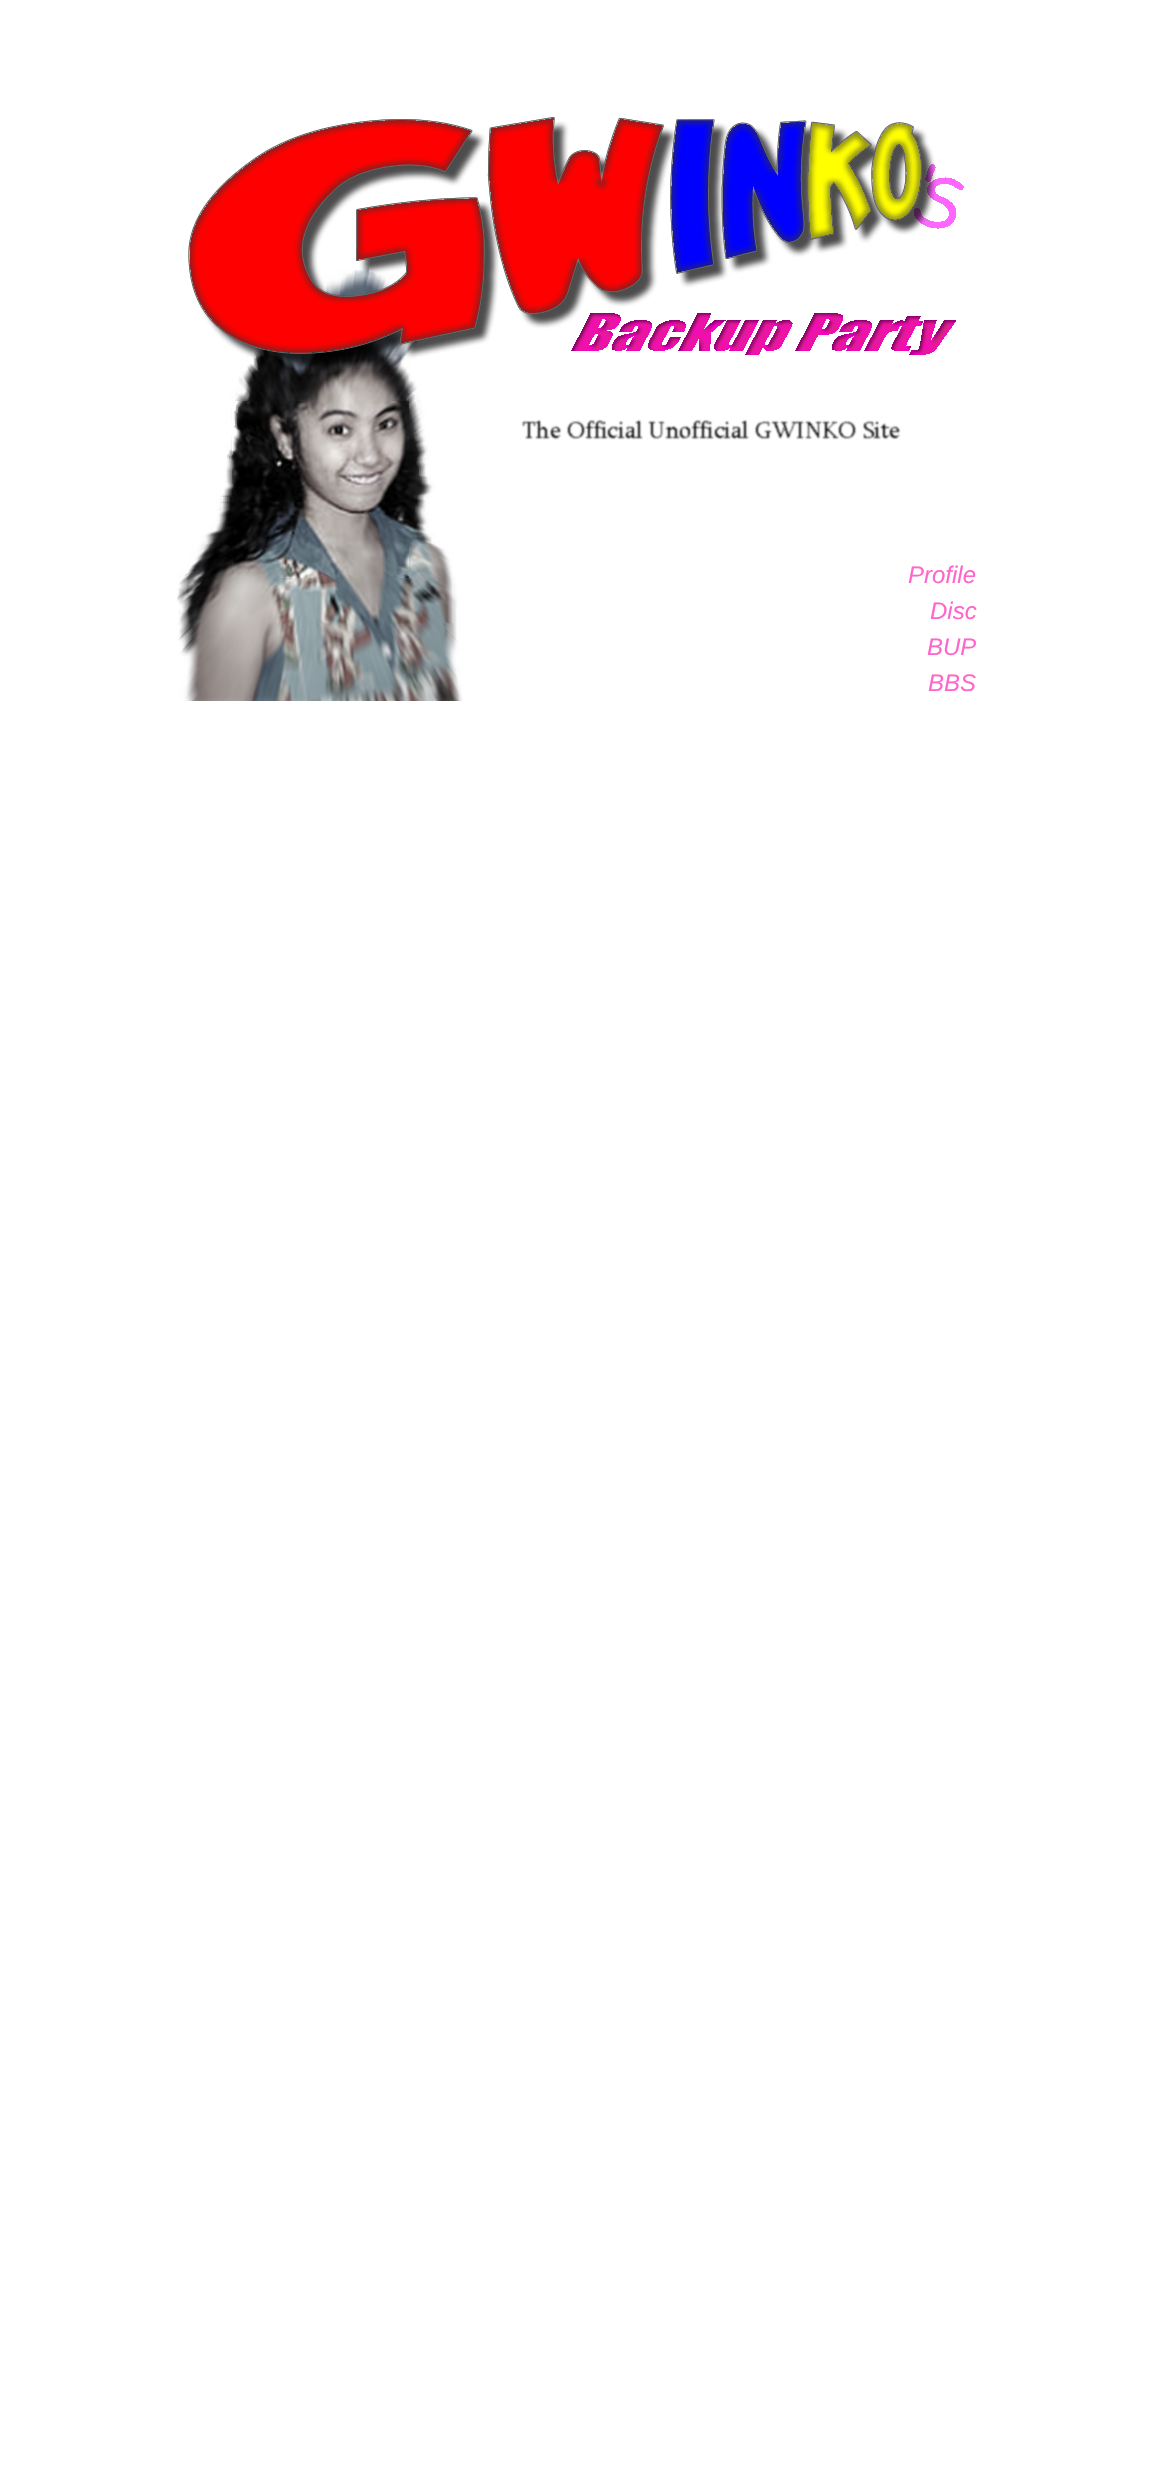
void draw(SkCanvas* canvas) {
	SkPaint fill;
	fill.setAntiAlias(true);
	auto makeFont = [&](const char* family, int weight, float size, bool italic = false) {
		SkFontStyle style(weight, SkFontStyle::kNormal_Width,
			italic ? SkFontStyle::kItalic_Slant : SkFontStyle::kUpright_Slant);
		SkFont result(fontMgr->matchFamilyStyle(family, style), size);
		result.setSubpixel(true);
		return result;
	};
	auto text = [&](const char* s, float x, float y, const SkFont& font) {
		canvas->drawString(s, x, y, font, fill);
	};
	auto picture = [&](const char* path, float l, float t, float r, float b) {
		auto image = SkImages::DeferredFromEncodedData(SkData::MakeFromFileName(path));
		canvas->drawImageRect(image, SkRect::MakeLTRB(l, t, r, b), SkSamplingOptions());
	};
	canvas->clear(0xFFFFFFFF);
	picture("image0.png", 188, 117, 964, 368);
	picture("image1.png", 177, 368, 463, 701);
	picture("image2.png", 521, 419, 901, 440);
	auto font1 = makeFont("Liberation Sans", 400, 24, true);
	fill.setColor(0xFFFF66CC);
	text("Profile", 908, 583, font1);
	text("Disc", 930, 619, font1);
	text("BUP", 927, 655, font1);
	text("BBS", 928, 691, font1);
}
